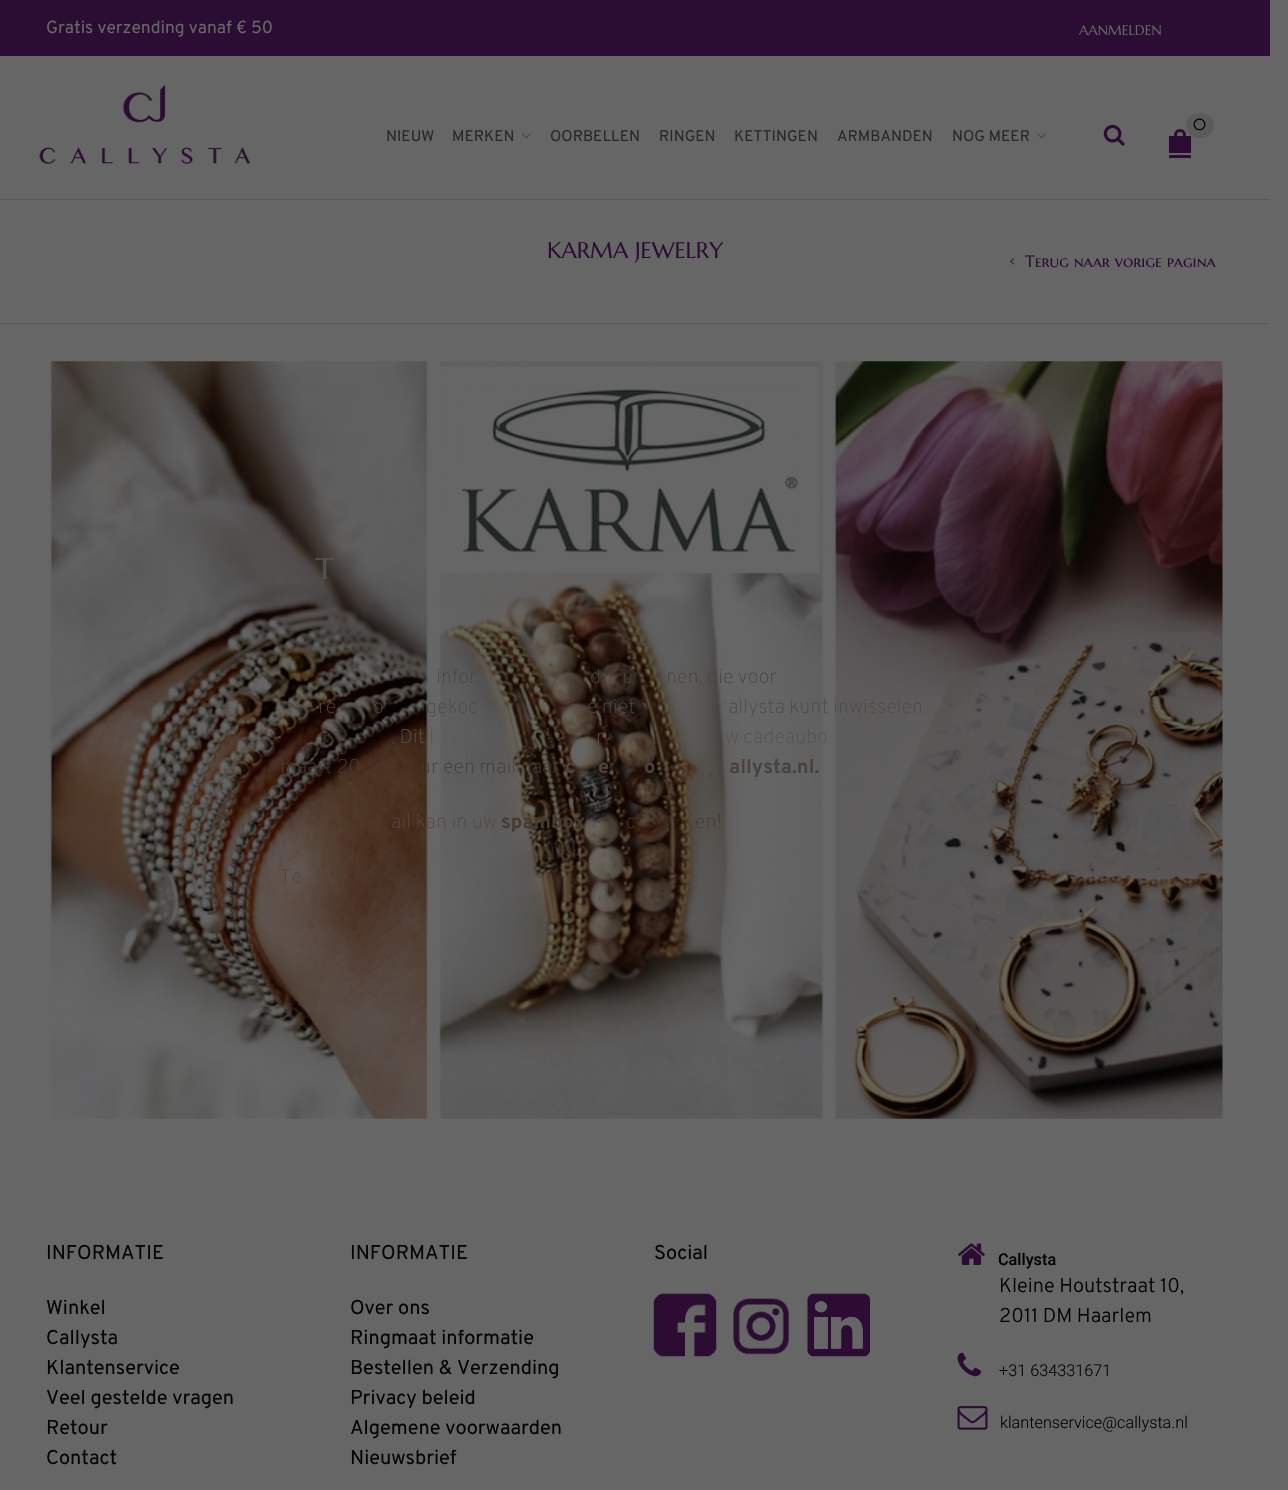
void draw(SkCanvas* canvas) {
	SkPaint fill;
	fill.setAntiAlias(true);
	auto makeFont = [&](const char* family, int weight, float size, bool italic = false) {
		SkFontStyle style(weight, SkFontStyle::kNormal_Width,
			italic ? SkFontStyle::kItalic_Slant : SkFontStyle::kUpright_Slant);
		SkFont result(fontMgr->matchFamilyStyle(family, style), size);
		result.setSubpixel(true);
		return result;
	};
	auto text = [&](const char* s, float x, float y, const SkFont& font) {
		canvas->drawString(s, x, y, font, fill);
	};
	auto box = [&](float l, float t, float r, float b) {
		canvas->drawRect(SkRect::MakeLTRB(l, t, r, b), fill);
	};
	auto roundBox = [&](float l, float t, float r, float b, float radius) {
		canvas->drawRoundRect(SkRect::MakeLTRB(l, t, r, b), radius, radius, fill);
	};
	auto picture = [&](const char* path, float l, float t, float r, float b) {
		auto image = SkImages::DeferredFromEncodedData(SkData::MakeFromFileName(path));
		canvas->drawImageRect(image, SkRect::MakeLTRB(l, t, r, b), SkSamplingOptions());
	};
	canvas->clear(0xFF666666);
	fill.setColor(0xFF2B0C32);
	box(0, 0, 1270, 56);
	picture("image0.png", 39, 84, 251, 164);
	picture("image1.png", 1103, 124, 1125, 146);
	fill.setColor(0xFF2C0C32);
	box(1169, 136, 1191, 153);
	fill.setColor(0xFF5B5B5B);
	roundBox(1186, 113, 1214, 138, 12.5f);
	fill.setStyle(SkPaint::kStroke_Style);
	fill.setStrokeWidth(3);
	fill.setColor(0xFF2C0C32);
	canvas->drawCircle(1180, 135, 4.5f, fill);
	fill.setStyle(SkPaint::kFill_Style);
	box(1169, 155, 1191, 158);
	picture("image2.png", 522, 133, 531, 139);
	picture("image2.png", 1037, 133, 1046, 139);
	fill.setColor(0xFF585858);
	box(0, 199, 1270, 200);
	box(0, 323, 1270, 324);
	picture("image3.png", 1010, 258, 1014, 265);
	picture("image4.png", 49, 361, 1223, 1119);
	picture("image5.png", 653, 1293, 717, 1357);
	picture("image6.png", 733, 1298, 789, 1355);
	picture("image7.png", 807, 1293, 870, 1357);
	picture("image8.png", 958, 1243, 985, 1265);
	picture("image9.png", 957, 1352, 982, 1377);
	picture("image10.png", 957, 1406, 988, 1430);
	auto font1 = makeFont("Overpass", 400, 17.5f);
	fill.setColor(0xFF666666);
	text("Gratis verzending vanaf € 50", 46, 33, font1);
	auto font2 = makeFont("Marcellus SC", 400, 13.75f);
	text("AANMELDEN", 1079, 35, font2);
	auto font3 = makeFont("Marcellus SC", 400, 16.25f);
	fill.setColor(0xFF040404);
	text("0", 1193, 130, font3);
	auto font4 = makeFont("Overpass", 400, 15.5f);
	fill.setColor(0xFF282828);
	text("NIEUW", 386, 141, font4);
	text("MERKEN", 452, 141, font4);
	text("OORBELLEN", 550, 141, font4);
	text("RINGEN", 659, 141, font4);
	text("KETTINGEN", 734, 141, font4);
	text("ARMBANDEN", 837, 141, font4);
	text("NOG MEER", 952, 141, font4);
	auto font5 = makeFont("Marcellus SC", 400, 22.5f);
	fill.setColor(0xFF2C0C32);
	text("KARMA JEWELRY", 547, 258, font5);
	text("Terug naar vorige pagina", 1025, 267, font3);
	auto font6 = makeFont("Overpass", 400, 20);
	fill.setColor(0xFF040404);
	text("INFORMATIE", 46, 1259, font6);
	text("Winkel", 46, 1314, font6);
	text("Callysta", 46, 1344, font6);
	text("Klantenservice", 46, 1374, font6);
	text("Veel gestelde vragen", 46, 1404, font6);
	text("Retour", 46, 1434, font6);
	text("Contact", 46, 1464, font6);
	text("INFORMATIE", 350, 1259, font6);
	text("Over ons", 350, 1314, font6);
	text("Ringmaat informatie", 350, 1344, font6);
	text("Bestellen & Verzending", 350, 1374, font6);
	text("Privacy beleid", 350, 1404, font6);
	text("Algemene voorwaarden", 350, 1434, font6);
	text("Nieuwsbrief", 350, 1464, font6);
	text("Social", 654, 1259, font6);
	auto font7 = makeFont("Roboto", 500, 16.25f);
	text("Callysta", 998, 1265, font7);
	auto font8 = makeFont("Overpass", 300, 20);
	text("Kleine Houtstraat 10,", 999, 1292, font8);
	text("2011 DM Haarlem", 999, 1322, font8);
	auto font9 = makeFont("Roboto", 300, 16.25f);
	text("+31 634331671", 999, 1376, font9);
	text("klantenservice@callysta.nl", 1000, 1428, font9);
	auto font10 = makeFont("Marcellus SC", 400, 40);
	fill.setColor(0xFF535150);
	text("t", 315, 579, font10);
	auto font11 = makeFont("Overpass", 100, 20);
	fill.setColor(0xFF49423D);
	text("infor", 436, 683, font11);
	text("d", 590, 683, font11);
	text("u", 622, 683, font11);
	text("nen, die voor", 666, 683, font11);
	fill.setColor(0xFF4D4844);
	text("re", 318, 713, font11);
	text("o", 373, 713, font11);
	text("gekoc", 426, 713, font11);
	text("e niet", 587, 713, font11);
	text("allysta kunt inwisselen", 728, 713, font11);
	auto font12 = makeFont("Overpass", 700, 20);
	fill.setColor(0xFF2B1D18);
	text("r", 320, 743, font12);
	fill.setColor(0xFF535150);
	text(". Dit i", 391, 743, font11);
	text("r", 596, 743, font11);
	text(".", 652, 743, font11);
	text("w cadeaubo", 725, 743, font11);
	fill.setColor(0xFF463B34);
	text("maart 20", 280, 773, font11);
	text("ur een mail naar", 420, 773, font11);
	fill.setColor(0xFF49423D);
	text("c", 565, 773, font12);
	text("e", 598, 773, font12);
	text("o", 644, 773, font12);
	text("allysta.nl.", 729, 773, font12);
	fill.setColor(0xFF54463E);
	text("ail kan in uw", 391, 828, font11);
	fill.setColor(0xFF463B34);
	text("spambox", 501, 828, font12);
	fill.setColor(0xFF42372E);
	text("c", 626, 828, font11);
	text("en!", 695, 828, font11);
	fill.setColor(0xFF534035);
	text("Te", 280, 883, font11);
}
